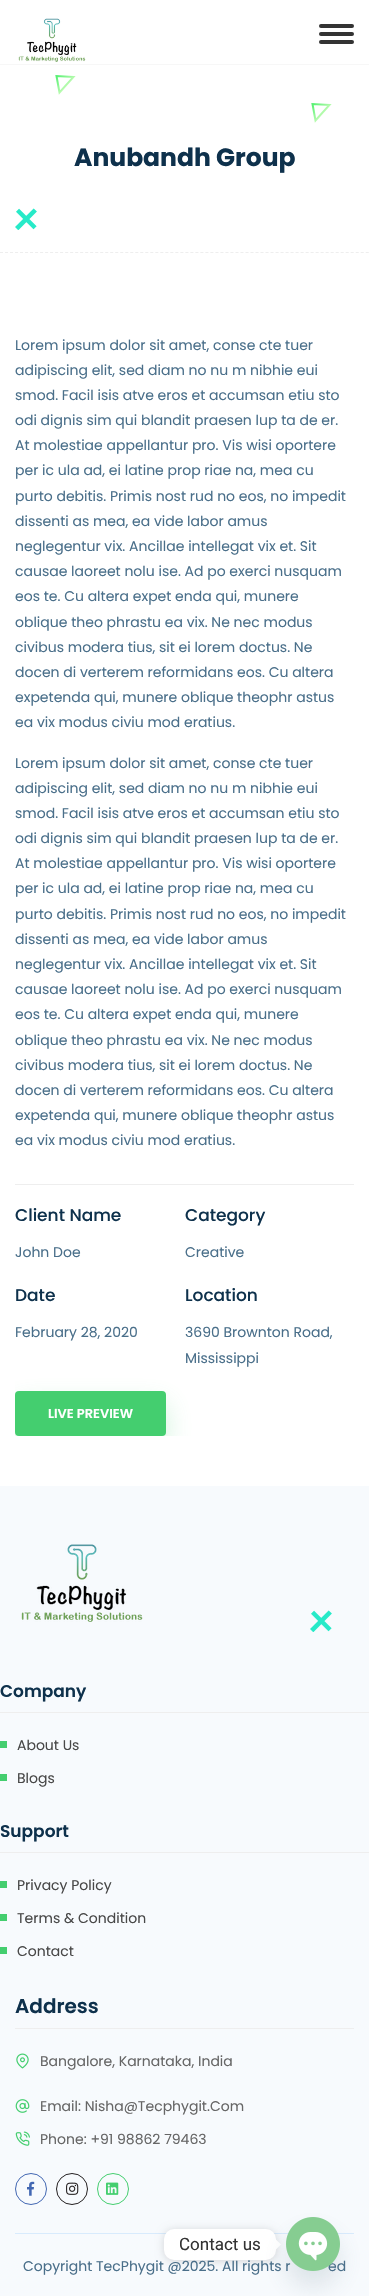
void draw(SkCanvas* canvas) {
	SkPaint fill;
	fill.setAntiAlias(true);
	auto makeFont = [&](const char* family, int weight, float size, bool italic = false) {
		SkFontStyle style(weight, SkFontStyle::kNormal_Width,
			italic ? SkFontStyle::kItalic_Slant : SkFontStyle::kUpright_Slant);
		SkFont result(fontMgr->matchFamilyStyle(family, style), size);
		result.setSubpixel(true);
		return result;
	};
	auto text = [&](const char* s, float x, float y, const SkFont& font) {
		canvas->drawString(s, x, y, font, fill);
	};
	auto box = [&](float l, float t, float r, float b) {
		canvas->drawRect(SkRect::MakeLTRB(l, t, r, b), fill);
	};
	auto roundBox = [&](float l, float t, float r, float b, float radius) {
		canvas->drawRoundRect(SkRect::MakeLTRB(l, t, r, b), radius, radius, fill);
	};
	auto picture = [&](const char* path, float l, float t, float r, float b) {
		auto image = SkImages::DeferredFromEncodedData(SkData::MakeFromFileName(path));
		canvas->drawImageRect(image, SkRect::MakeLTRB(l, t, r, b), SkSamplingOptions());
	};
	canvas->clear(0xFFFFFFFF);
	picture("image0.png", 18, 18, 86, 62);
	fill.setColor(0xFF333333);
	roundBox(319, 24, 354, 28, 2);
	roundBox(319, 32, 354, 36, 2);
	roundBox(319, 40, 354, 44, 2);
	fill.setColor(0xFFF7F7F7);
	box(0, 64, 369, 65);
	fill.setStyle(SkPaint::kStroke_Style);
	fill.setStrokeWidth(1);
	fill.setColor(0xFFEEEEEE);
	fill.setPathEffect(SkDashPathEffect::Make({{3, 2.01f}}, 0));
	canvas->drawPath(SkPathBuilder().moveTo(0, 252.5f).lineTo(369, 252.5f).detach(), fill);
	fill.setPathEffect(nullptr);
	fill.setStrokeWidth(2);
	{
		const SkColor colors[] = {0xFF57F173, 0xFFDDFFC6};
		const float stops[] = {0, 1};
		const SkPoint ends[] = {{57, 76}, {71, 89}};
		fill.setShader(SkGradientShader::MakeLinear(ends, colors, stops, 2, SkTileMode::kClamp));
		fill.setAlpha(255);
	}
	canvas->drawPath(SkPathBuilder().moveTo(73.5f, 77).lineTo(56.5f, 76).lineTo(59.5f, 92.5f).close().detach(), fill);
	{
		const SkColor colors[] = {0xFF57F173, 0xFFDDFFC6};
		const float stops[] = {0, 1};
		const SkPoint ends[] = {{313, 104}, {327, 117}};
		fill.setShader(SkGradientShader::MakeLinear(ends, colors, stops, 2, SkTileMode::kClamp));
		fill.setAlpha(255);
	}
	canvas->drawPath(SkPathBuilder().moveTo(329.5f, 105).lineTo(312.5f, 104).lineTo(315.5f, 120.5f).close().detach(), fill);
	picture("image1.png", 15, 208, 37, 230);
	fill.setStyle(SkPaint::kFill_Style);
	fill.setShader(nullptr);
	fill.setColor(0xFFEEEEEE);
	box(15, 1184, 354, 1185);
	canvas->save();
	canvas->clipRect(SkRect::MakeLTRB(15, 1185, 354, 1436));
	fill.setColor(0x4044CE6F);
	fill.setMaskFilter(SkMaskFilter::MakeBlur(kNormal_SkBlurStyle, 13.5f));
	canvas->drawRoundRect(SkRect::MakeLTRB(15, 1404, 166, 1449), 4, 4, fill);
	fill.setMaskFilter(nullptr);
	canvas->restore();
	fill.setColor(0xFF44CE6F);
	roundBox(15, 1391, 166, 1436, 4);
	fill.setColor(0xFFF7FAFD);
	box(0, 1486, 369, 2296);
	picture("image2.png", 310, 1610, 332, 1632);
	picture("image3.png", 21, 1544, 143, 1622);
	fill.setColor(0xFFEEEEEE);
	box(0, 1712, 369, 1713);
	fill.setColor(0xFF44CE6F);
	box(0, 1741, 7, 1748);
	box(0, 1774, 7, 1781);
	fill.setColor(0xFFEEEEEE);
	box(0, 1852, 369, 1853);
	fill.setColor(0xFF44CE6F);
	box(0, 1881, 7, 1888);
	box(0, 1914, 7, 1921);
	box(0, 1947, 7, 1954);
	fill.setColor(0xFFEEEEEE);
	box(15, 2028, 354, 2029);
	picture("image4.png", 16, 2053, 29, 2069);
	picture("image5.png", 15, 2099, 30, 2113);
	picture("image6.png", 15, 2131, 30, 2146);
	fill.setStyle(SkPaint::kStroke_Style);
	fill.setStrokeWidth(1);
	fill.setColor(0xFF4267B2);
	canvas->drawCircle(31, 2189, 15.5f, fill);
	picture("image7.png", 27, 2181, 35, 2196);
	fill.setColor(0xFF231F20);
	canvas->drawCircle(72, 2189, 15.5f, fill);
	picture("image8.png", 66, 2182, 79, 2195);
	fill.setColor(0xFF44CE6F);
	canvas->drawCircle(113, 2189, 15.5f, fill);
	picture("image9.png", 106, 2182, 119, 2195);
	fill.setStyle(SkPaint::kFill_Style);
	fill.setColor(0xFFD8EBFD);
	box(15, 2233, 354, 2234);
	fill.setColor(0x26000000);
	fill.setMaskFilter(SkMaskFilter::MakeBlur(kNormal_SkBlurStyle, 4));
	canvas->drawRoundRect(SkRect::MakeLTRB(164, 2230, 276, 2261), 10, 10, fill);
	fill.setMaskFilter(nullptr);
	fill.setColor(0xFFFFFFFF);
	roundBox(164, 2229, 276, 2260, 10);
	canvas->drawPath(SkPathBuilder().moveTo(276, 2249.5f).lineTo(276, 2239.5f).lineTo(281, 2244.5f).close().detach(), fill);
	fill.setColor(0x2949687E);
	fill.setMaskFilter(SkMaskFilter::MakeBlur(kNormal_SkBlurStyle, 12));
	canvas->drawRoundRect(SkRect::MakeLTRB(286, 2233, 340, 2287), 27, 27, fill);
	fill.setMaskFilter(nullptr);
	auto font1 = makeFont("Poppins", 700, 25);
	fill.setColor(0xFF0E314C);
	text("Anubandh Group", 74, 166, font1);
	auto font2 = makeFont("Poppins", 400, 14);
	fill.setColor(0xFF4A6F8A);
	text("Lorem ipsum dolor sit amet, conse cte tuer", 15, 350, font2);
	text("adipiscing elit, sed diam no nu m nibhie eui", 15, 375, font2);
	text("smod. Facil isis atve eros et accumsan etiu sto", 15, 400, font2);
	text("odi dignis sim qui blandit praesen lup ta de er.", 15, 425, font2);
	text("At molestiae appellantur pro. Vis wisi oportere", 15, 450, font2);
	text("per ic ula ad, ei latine prop riae na, mea cu", 15, 475, font2);
	text("purto debitis. Primis nost rud no eos, no impedit", 15, 501, font2);
	text("dissenti as mea, ea vide labor amus", 15, 526, font2);
	text("neglegentur vix. Ancillae intellegat vix et. Sit", 15, 551, font2);
	text("causae laoreet nolu ise. Ad po exerci nusquam", 15, 576, font2);
	text("eos te. Cu altera expet enda qui, munere", 15, 601, font2);
	text("oblique theo phrastu ea vix. Ne nec modus", 15, 627, font2);
	text("civibus modera tius, sit ei lorem doctus. Ne", 15, 652, font2);
	text("docen di verterem reformidans eos. Cu altera", 15, 677, font2);
	text("expetenda qui, munere oblique theophr astus", 15, 702, font2);
	text("ea vix modus civiu mod eratius.", 15, 727, font2);
	text("Lorem ipsum dolor sit amet, conse cte tuer", 15, 768, font2);
	text("adipiscing elit, sed diam no nu m nibhie eui", 15, 793, font2);
	text("smod. Facil isis atve eros et accumsan etiu sto", 15, 818, font2);
	text("odi dignis sim qui blandit praesen lup ta de er.", 15, 843, font2);
	text("At molestiae appellantur pro. Vis wisi oportere", 15, 868, font2);
	text("per ic ula ad, ei latine prop riae na, mea cu", 15, 893, font2);
	text("purto debitis. Primis nost rud no eos, no impedit", 15, 919, font2);
	text("dissenti as mea, ea vide labor amus", 15, 944, font2);
	text("neglegentur vix. Ancillae intellegat vix et. Sit", 15, 969, font2);
	text("causae laoreet nolu ise. Ad po exerci nusquam", 15, 994, font2);
	text("eos te. Cu altera expet enda qui, munere", 15, 1019, font2);
	text("oblique theo phrastu ea vix. Ne nec modus", 15, 1045, font2);
	text("civibus modera tius, sit ei lorem doctus. Ne", 15, 1070, font2);
	text("docen di verterem reformidans eos. Cu altera", 15, 1095, font2);
	text("expetenda qui, munere oblique theophr astus", 15, 1120, font2);
	text("ea vix modus civiu mod eratius.", 15, 1145, font2);
	auto font3 = makeFont("Poppins", 500, 17);
	fill.setColor(0xFF0E314C);
	text("Client Name", 15, 1221, font3);
	fill.setColor(0xFF4A6F8A);
	text("John Doe", 15, 1257, font2);
	fill.setColor(0xFF0E314C);
	text("Category", 185, 1221, font3);
	fill.setColor(0xFF4A6F8A);
	text("Creative", 185, 1257, font2);
	fill.setColor(0xFF0E314C);
	text("Date", 15, 1301, font3);
	fill.setColor(0xFF4A6F8A);
	text("February 28, 2020", 15, 1337, font2);
	fill.setColor(0xFF0E314C);
	text("Location", 185, 1301, font3);
	fill.setColor(0xFF4A6F8A);
	text("3690 Brownton Road,", 185, 1337, font2);
	text("Mississippi", 185, 1363, font2);
	auto font4 = makeFont("Poppins", 600, 13);
	fill.setColor(0xFFFFFFFF);
	text("LIVE PREVIEW", 48, 1418, font4);
	auto font5 = makeFont("Poppins", 600, 17);
	fill.setColor(0xFF0E314C);
	text("Company", 0, 1697, font5);
	fill.setColor(0xFF484848);
	text("About Us", 17, 1750, font2);
	text("Blogs", 17, 1783, font2);
	fill.setColor(0xFF0E314C);
	text("Support", 0, 1837, font5);
	fill.setColor(0xFF484848);
	text("Privacy Policy", 17, 1890, font2);
	text("Terms & Condition", 17, 1923, font2);
	text("Contact", 17, 1956, font2);
	auto font6 = makeFont("Poppins", 600, 20);
	fill.setColor(0xFF0E314C);
	text("Address", 15, 2013, font6);
	fill.setColor(0xFF666666);
	text("Bangalore, Karnataka, India", 40, 2066, font2);
	text("Email: Nisha@Tecphygit.Com", 40, 2111, font2);
	text("Phone: +91 98862 79463", 40, 2144, font2);
	fill.setColor(0xFF4A6F8A);
	text("Copyright TecPhygit @2025. All rights r", 23, 2271, font2);
	text("ed", 328, 2271, font2);
	auto font7 = makeFont("Roboto", 400, 17);
	fill.setColor(0xFF333333);
	text("Contact us", 179, 2250, font7);
	picture("image10.png", 286, 2217, 340, 2271);
}
